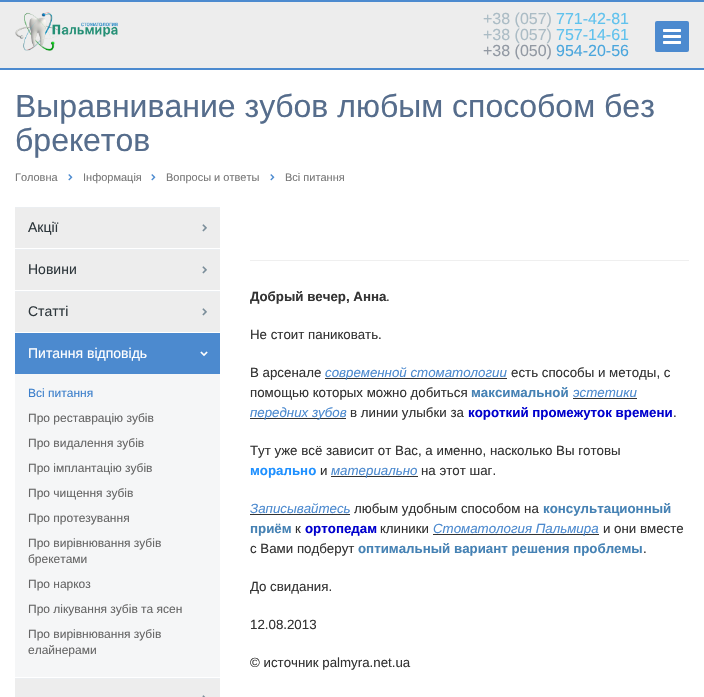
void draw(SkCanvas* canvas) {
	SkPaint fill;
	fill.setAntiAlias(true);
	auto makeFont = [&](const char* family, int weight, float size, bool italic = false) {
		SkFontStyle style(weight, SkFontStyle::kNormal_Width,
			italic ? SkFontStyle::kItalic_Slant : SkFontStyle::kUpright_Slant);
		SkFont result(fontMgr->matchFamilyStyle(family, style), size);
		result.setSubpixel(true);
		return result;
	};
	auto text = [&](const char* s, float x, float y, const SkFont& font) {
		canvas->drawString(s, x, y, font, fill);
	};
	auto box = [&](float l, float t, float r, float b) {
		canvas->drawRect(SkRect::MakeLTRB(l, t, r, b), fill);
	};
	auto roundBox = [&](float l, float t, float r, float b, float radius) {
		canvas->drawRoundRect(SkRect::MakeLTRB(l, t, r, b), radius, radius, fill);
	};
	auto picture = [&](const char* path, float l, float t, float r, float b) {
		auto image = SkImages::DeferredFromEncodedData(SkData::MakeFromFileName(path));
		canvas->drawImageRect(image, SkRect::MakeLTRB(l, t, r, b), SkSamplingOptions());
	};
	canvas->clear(0xFFFFFFFF);
	fill.setColor(0xFF4C8ACF);
	box(0, 0, 704, 2);
	fill.setColor(0xFFEDEDED);
	box(0, 2, 704, 68);
	picture("image0.png", 15, 12, 118, 51);
	fill.setColor(0xFF4C8ACF);
	roundBox(655, 21, 689, 52, 2);
	picture("image1.png", 663, 29, 681, 44);
	box(0, 68, 704, 70);
	picture("image2.png", 68, 174, 73, 181);
	picture("image2.png", 151, 174, 156, 181);
	picture("image2.png", 270, 174, 275, 181);
	fill.setColor(0xFFEDEDED);
	box(15, 208, 220, 248);
	fill.setColor(0xFFEBEEF1);
	box(15, 207, 220, 208);
	picture("image3.png", 202, 224, 207, 232);
	fill.setColor(0xFFEDEDED);
	box(15, 250, 220, 290);
	fill.setColor(0xFFEBEEF1);
	box(15, 249, 220, 250);
	picture("image3.png", 202, 266, 207, 274);
	fill.setColor(0xFFEDEDED);
	box(15, 292, 220, 332);
	fill.setColor(0xFFEBEEF1);
	box(15, 291, 220, 292);
	picture("image3.png", 202, 308, 207, 316);
	fill.setColor(0xFF4C8ACF);
	box(15, 333, 220, 374);
	picture("image4.png", 200, 351, 208, 357);
	fill.setColor(0xFFF5F6F7);
	box(15, 374, 220, 677);
	fill.setColor(0xFFEDEDED);
	box(15, 679, 220, 697);
	fill.setColor(0xFFEBEEF1);
	box(15, 678, 220, 679);
	picture("image5.png", 202, 695, 206, 697);
	fill.setColor(0xFFEFEFEF);
	box(250, 260, 689, 261);
	fill.setColor(0xFF333333);
	box(325, 378, 507, 379);
	box(573, 398, 637, 399);
	box(250, 418, 346, 419);
	box(331, 476, 418, 477);
	box(250, 514, 350, 515);
	box(433, 534, 599, 535);
	auto font1 = makeFont("Liberation Sans", 400, 16);
	fill.setColor(0xFFABBCC5);
	text("+38 (057)", 483, 24, font1);
	fill.setColor(0xFF60C2ED);
	text("771-42-81", 556, 24, font1);
	fill.setColor(0xFFABBCC5);
	text("+38 (057)", 483, 40, font1);
	fill.setColor(0xFF60C2ED);
	text("757-14-61", 556, 40, font1);
	fill.setColor(0xFF9299A3);
	text("+38 (050)", 483, 56, font1);
	fill.setColor(0xFF4AA6DD);
	text("954-20-56", 556, 56, font1);
	auto font2 = makeFont("Liberation Sans", 400, 32);
	fill.setColor(0xFF566D8C);
	text("Выравнивание зубов любым способом без", 15, 117, font2);
	text("брекетов", 15, 151, font2);
	auto font3 = makeFont("Liberation Sans", 400, 11);
	fill.setColor(0xFF777777);
	text("Головна", 15, 181, font3);
	text("Інформація", 83, 181, font3);
	text("Вопросы и ответы", 166, 181, font3);
	text("Всі питання", 285, 181, font3);
	auto font4 = makeFont("Liberation Sans", 400, 14);
	fill.setColor(0xFF2F383D);
	text("Акції", 28, 232, font4);
	text("Новини", 28, 274, font4);
	text("Статті", 28, 316, font4);
	fill.setColor(0xFFFFFFFF);
	text("Питання відповідь", 28, 358, font4);
	auto font5 = makeFont("Liberation Sans", 400, 12);
	fill.setColor(0xFF3C7FCB);
	text("Всі питання", 28, 397, font5);
	fill.setColor(0xFF666666);
	text("Про реставрацію зубів", 28, 422, font5);
	text("Про видалення зубів", 28, 447, font5);
	text("Про імплантацію зубів", 28, 472, font5);
	text("Про чищення зубів", 28, 497, font5);
	text("Про протезування", 28, 522, font5);
	text("Про вирівнювання зубів", 28, 547, font5);
	text("брекетами", 28, 563, font5);
	text("Про наркоз", 28, 588, font5);
	text("Про лікування зубів та ясен", 28, 613, font5);
	text("Про вирівнювання зубів", 28, 638, font5);
	text("елайнерами", 28, 654, font5);
	auto font6 = makeFont("Liberation Sans", 700, 13.3f);
	fill.setColor(0xFF333333);
	text("Добрый вечер, Анна", 250, 301, font6);
	auto font7 = makeFont("Liberation Sans", 400, 13.3f);
	text(".", 386, 301, font7);
	text("Не стоит паниковать.", 250, 339, font7);
	text("В арсенале", 250, 377, font7);
	auto font8 = makeFont("Liberation Sans", 400, 13.3f, true);
	fill.setColor(0xFF4C8ACF);
	text("современной стоматологии", 325, 377, font8);
	fill.setColor(0xFF333333);
	text("есть способы и методы, с", 511, 377, font7);
	text("помощью которых можно добиться", 250, 397, font7);
	fill.setColor(0xFF4682B4);
	text("максимальной", 471, 397, font6);
	fill.setColor(0xFF4C8ACF);
	text("эстетики", 573, 397, font8);
	text("передних зубов", 250, 417, font8);
	fill.setColor(0xFF333333);
	text("в линии улыбки за", 350, 417, font7);
	fill.setColor(0xFF0000CD);
	text("короткий промежуток времени", 468, 417, font6);
	fill.setColor(0xFF333333);
	text(".", 673, 417, font7);
	text("Тут уже всё зависит от Вас, а именно, насколько Вы готовы", 250, 455, font7);
	fill.setColor(0xFF1E90FF);
	text("морально", 250, 475, font6);
	fill.setColor(0xFF333333);
	text("и", 320, 475, font7);
	fill.setColor(0xFF4C8ACF);
	text("материально", 331, 475, font8);
	fill.setColor(0xFF333333);
	text("на этот шаг.", 421, 475, font7);
	fill.setColor(0xFF4C8ACF);
	text("Записывайтесь", 250, 513, font8);
	fill.setColor(0xFF333333);
	text("любым удобным способом на", 354, 513, font7);
	fill.setColor(0xFF4682B4);
	text("консультационный", 543, 513, font6);
	text("приём", 250, 533, font6);
	fill.setColor(0xFF333333);
	text("к", 295, 533, font7);
	fill.setColor(0xFF0000CD);
	text("ортопедам", 305, 533, font6);
	fill.setColor(0xFF333333);
	text("клиники", 380, 533, font7);
	fill.setColor(0xFF4C8ACF);
	text("Стоматология Пальмира", 433, 533, font8);
	fill.setColor(0xFF333333);
	text("и они вместе", 603, 533, font7);
	text("с Вами подберут", 250, 553, font7);
	fill.setColor(0xFF4682B4);
	text("оптимальный вариант решения проблемы", 358, 553, font6);
	fill.setColor(0xFF333333);
	text(".", 643, 553, font7);
	text("До свидания.", 250, 591, font7);
	text("12.08.2013", 250, 629, font7);
	text("© источник palmyra.net.ua", 250, 667, font7);
}
